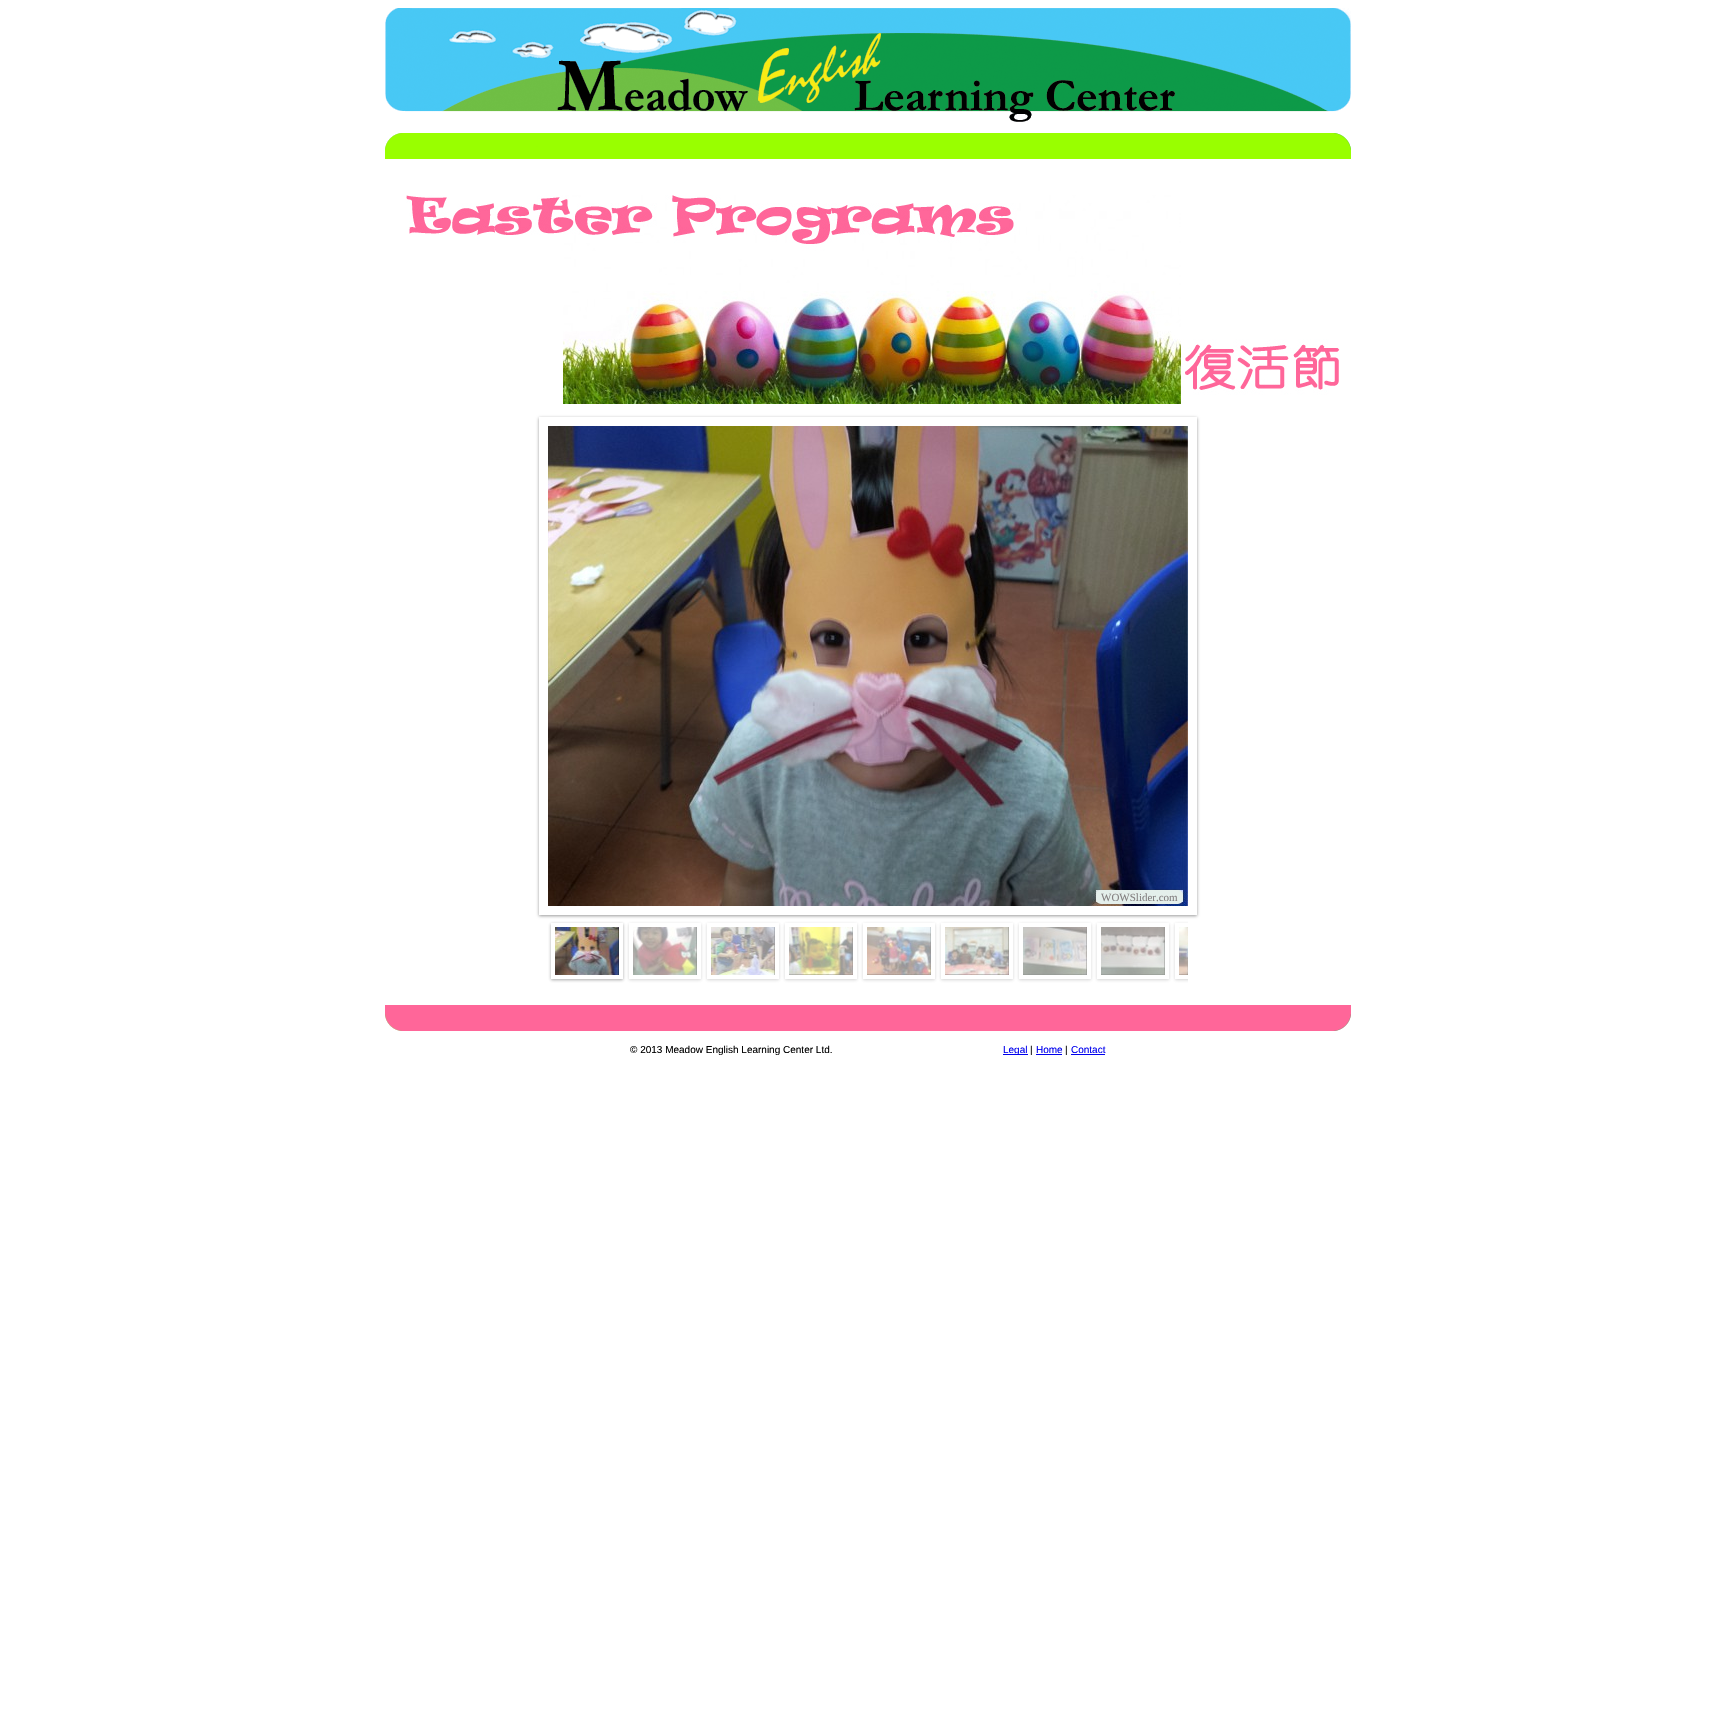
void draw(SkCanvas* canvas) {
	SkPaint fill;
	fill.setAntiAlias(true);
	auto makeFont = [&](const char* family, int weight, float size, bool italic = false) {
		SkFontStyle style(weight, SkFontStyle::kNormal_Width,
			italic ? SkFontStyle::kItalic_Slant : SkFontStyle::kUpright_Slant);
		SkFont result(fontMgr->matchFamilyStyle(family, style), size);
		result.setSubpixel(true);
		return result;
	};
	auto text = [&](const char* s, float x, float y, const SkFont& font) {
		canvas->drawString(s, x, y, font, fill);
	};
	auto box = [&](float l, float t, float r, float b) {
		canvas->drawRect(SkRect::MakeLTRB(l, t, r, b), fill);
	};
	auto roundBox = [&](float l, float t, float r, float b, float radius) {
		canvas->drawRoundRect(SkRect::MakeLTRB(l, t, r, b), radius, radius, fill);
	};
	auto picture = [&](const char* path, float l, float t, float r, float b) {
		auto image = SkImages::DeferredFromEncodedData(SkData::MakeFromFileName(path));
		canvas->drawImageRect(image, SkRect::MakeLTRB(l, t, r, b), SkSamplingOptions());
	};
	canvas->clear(0xFFFFFFFF);
	picture("image0.png", 385, 8, 1351, 122);
	picture("image1.png", 385, 133, 1351, 159);
	picture("image2.png", 406, 195, 1340, 404);
	canvas->save();
	canvas->clipPath(SkPathBuilder(SkPathFillType::kEvenOdd).moveTo(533, 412).lineTo(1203, 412).lineTo(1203, 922).lineTo(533, 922).close().moveTo(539, 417).lineTo(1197, 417).lineTo(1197, 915).lineTo(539, 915).close().detach(), true);
	fill.setColor(0x66000000);
	fill.setMaskFilter(SkMaskFilter::MakeBlur(kNormal_SkBlurStyle, 1.5f));
	canvas->drawRect(SkRect::MakeLTRB(539, 418, 1197, 916), fill);
	fill.setMaskFilter(nullptr);
	canvas->restore();
	picture("image3.png", 548, 426, 1188, 906);
	fill.setColor(0xFFE4EFEB);
	roundBox(1096, 890, 1183, 904, 5);
	canvas->save();
	canvas->clipPath(SkPathBuilder(SkPathFillType::kEvenOdd).moveTo(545, 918).lineTo(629, 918).lineTo(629, 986).lineTo(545, 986).close().moveTo(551, 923).lineTo(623, 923).lineTo(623, 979).lineTo(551, 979).close().detach(), true);
	fill.setColor(0x66262626);
	fill.setMaskFilter(SkMaskFilter::MakeBlur(kNormal_SkBlurStyle, 1.5f));
	canvas->drawRect(SkRect::MakeLTRB(551, 924, 623, 980), fill);
	fill.setMaskFilter(nullptr);
	canvas->restore();
	canvas->save();
	canvas->clipPath(SkPathBuilder(SkPathFillType::kEvenOdd).moveTo(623, 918).lineTo(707, 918).lineTo(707, 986).lineTo(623, 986).close().moveTo(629, 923).lineTo(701, 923).lineTo(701, 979).lineTo(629, 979).close().detach(), true);
	fill.setColor(0x66939393);
	fill.setMaskFilter(SkMaskFilter::MakeBlur(kNormal_SkBlurStyle, 1.5f));
	canvas->drawRect(SkRect::MakeLTRB(629, 924, 701, 980), fill);
	fill.setMaskFilter(nullptr);
	canvas->restore();
	canvas->save();
	canvas->clipPath(SkPathBuilder(SkPathFillType::kEvenOdd).moveTo(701, 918).lineTo(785, 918).lineTo(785, 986).lineTo(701, 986).close().moveTo(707, 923).lineTo(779, 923).lineTo(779, 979).lineTo(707, 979).close().detach(), true);
	fill.setMaskFilter(SkMaskFilter::MakeBlur(kNormal_SkBlurStyle, 1.5f));
	canvas->drawRect(SkRect::MakeLTRB(707, 924, 779, 980), fill);
	fill.setMaskFilter(nullptr);
	canvas->restore();
	canvas->save();
	canvas->clipPath(SkPathBuilder(SkPathFillType::kEvenOdd).moveTo(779, 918).lineTo(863, 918).lineTo(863, 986).lineTo(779, 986).close().moveTo(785, 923).lineTo(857, 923).lineTo(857, 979).lineTo(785, 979).close().detach(), true);
	fill.setMaskFilter(SkMaskFilter::MakeBlur(kNormal_SkBlurStyle, 1.5f));
	canvas->drawRect(SkRect::MakeLTRB(785, 924, 857, 980), fill);
	fill.setMaskFilter(nullptr);
	canvas->restore();
	canvas->save();
	canvas->clipPath(SkPathBuilder(SkPathFillType::kEvenOdd).moveTo(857, 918).lineTo(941, 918).lineTo(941, 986).lineTo(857, 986).close().moveTo(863, 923).lineTo(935, 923).lineTo(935, 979).lineTo(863, 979).close().detach(), true);
	fill.setMaskFilter(SkMaskFilter::MakeBlur(kNormal_SkBlurStyle, 1.5f));
	canvas->drawRect(SkRect::MakeLTRB(863, 924, 935, 980), fill);
	fill.setMaskFilter(nullptr);
	canvas->restore();
	canvas->save();
	canvas->clipPath(SkPathBuilder(SkPathFillType::kEvenOdd).moveTo(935, 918).lineTo(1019, 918).lineTo(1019, 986).lineTo(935, 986).close().moveTo(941, 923).lineTo(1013, 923).lineTo(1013, 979).lineTo(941, 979).close().detach(), true);
	fill.setMaskFilter(SkMaskFilter::MakeBlur(kNormal_SkBlurStyle, 1.5f));
	canvas->drawRect(SkRect::MakeLTRB(941, 924, 1013, 980), fill);
	fill.setMaskFilter(nullptr);
	canvas->restore();
	canvas->save();
	canvas->clipPath(SkPathBuilder(SkPathFillType::kEvenOdd).moveTo(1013, 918).lineTo(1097, 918).lineTo(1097, 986).lineTo(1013, 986).close().moveTo(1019, 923).lineTo(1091, 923).lineTo(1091, 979).lineTo(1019, 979).close().detach(), true);
	fill.setMaskFilter(SkMaskFilter::MakeBlur(kNormal_SkBlurStyle, 1.5f));
	canvas->drawRect(SkRect::MakeLTRB(1019, 924, 1091, 980), fill);
	fill.setMaskFilter(nullptr);
	canvas->restore();
	canvas->save();
	canvas->clipPath(SkPathBuilder(SkPathFillType::kEvenOdd).moveTo(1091, 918).lineTo(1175, 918).lineTo(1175, 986).lineTo(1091, 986).close().moveTo(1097, 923).lineTo(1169, 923).lineTo(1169, 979).lineTo(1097, 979).close().detach(), true);
	fill.setMaskFilter(SkMaskFilter::MakeBlur(kNormal_SkBlurStyle, 1.5f));
	canvas->drawRect(SkRect::MakeLTRB(1097, 924, 1169, 980), fill);
	fill.setMaskFilter(nullptr);
	canvas->restore();
	canvas->save();
	canvas->clipRect(SkRect::MakeLTRB(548, 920, 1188, 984));
	canvas->clipPath(SkPathBuilder(SkPathFillType::kEvenOdd).moveTo(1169, 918).lineTo(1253, 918).lineTo(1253, 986).lineTo(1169, 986).close().moveTo(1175, 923).lineTo(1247, 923).lineTo(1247, 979).lineTo(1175, 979).close().detach(), true);
	fill.setMaskFilter(SkMaskFilter::MakeBlur(kNormal_SkBlurStyle, 1.5f));
	canvas->drawRect(SkRect::MakeLTRB(1175, 924, 1247, 980), fill);
	fill.setMaskFilter(nullptr);
	canvas->restore();
	picture("image4.png", 555, 927, 619, 975);
	picture("image5.png", 633, 927, 697, 975);
	picture("image6.png", 711, 927, 775, 975);
	picture("image7.png", 789, 927, 853, 975);
	picture("image8.png", 867, 927, 931, 975);
	picture("image9.png", 945, 927, 1009, 975);
	picture("image10.png", 1023, 927, 1087, 975);
	picture("image11.png", 1101, 927, 1165, 975);
	picture("image12.png", 1179, 927, 1188, 975);
	picture("image13.png", 385, 1005, 1351, 1031);
	fill.setColor(0xFF0000EE);
	box(1003, 1054, 1028, 1055);
	box(1036, 1054, 1062, 1055);
	box(1071, 1054, 1105, 1055);
	auto font1 = makeFont("Liberation Serif", 400, 11);
	fill.setColor(0xFF837F80);
	text("WOWSlider.com", 1101, 901, font1);
	auto font2 = makeFont("Liberation Sans", 400, 10);
	fill.setColor(0xFF000000);
	text("© 2013 Meadow English Learning Center Ltd.", 630, 1053, font2);
	fill.setColor(0xFF0000EE);
	text("Legal", 1003, 1053, font2);
	fill.setColor(0xFF000000);
	text("|", 1030, 1053, font2);
	fill.setColor(0xFF0000EE);
	text("Home", 1036, 1053, font2);
	fill.setColor(0xFF000000);
	text("|", 1065, 1053, font2);
	fill.setColor(0xFF0000EE);
	text("Contact", 1071, 1053, font2);
}
